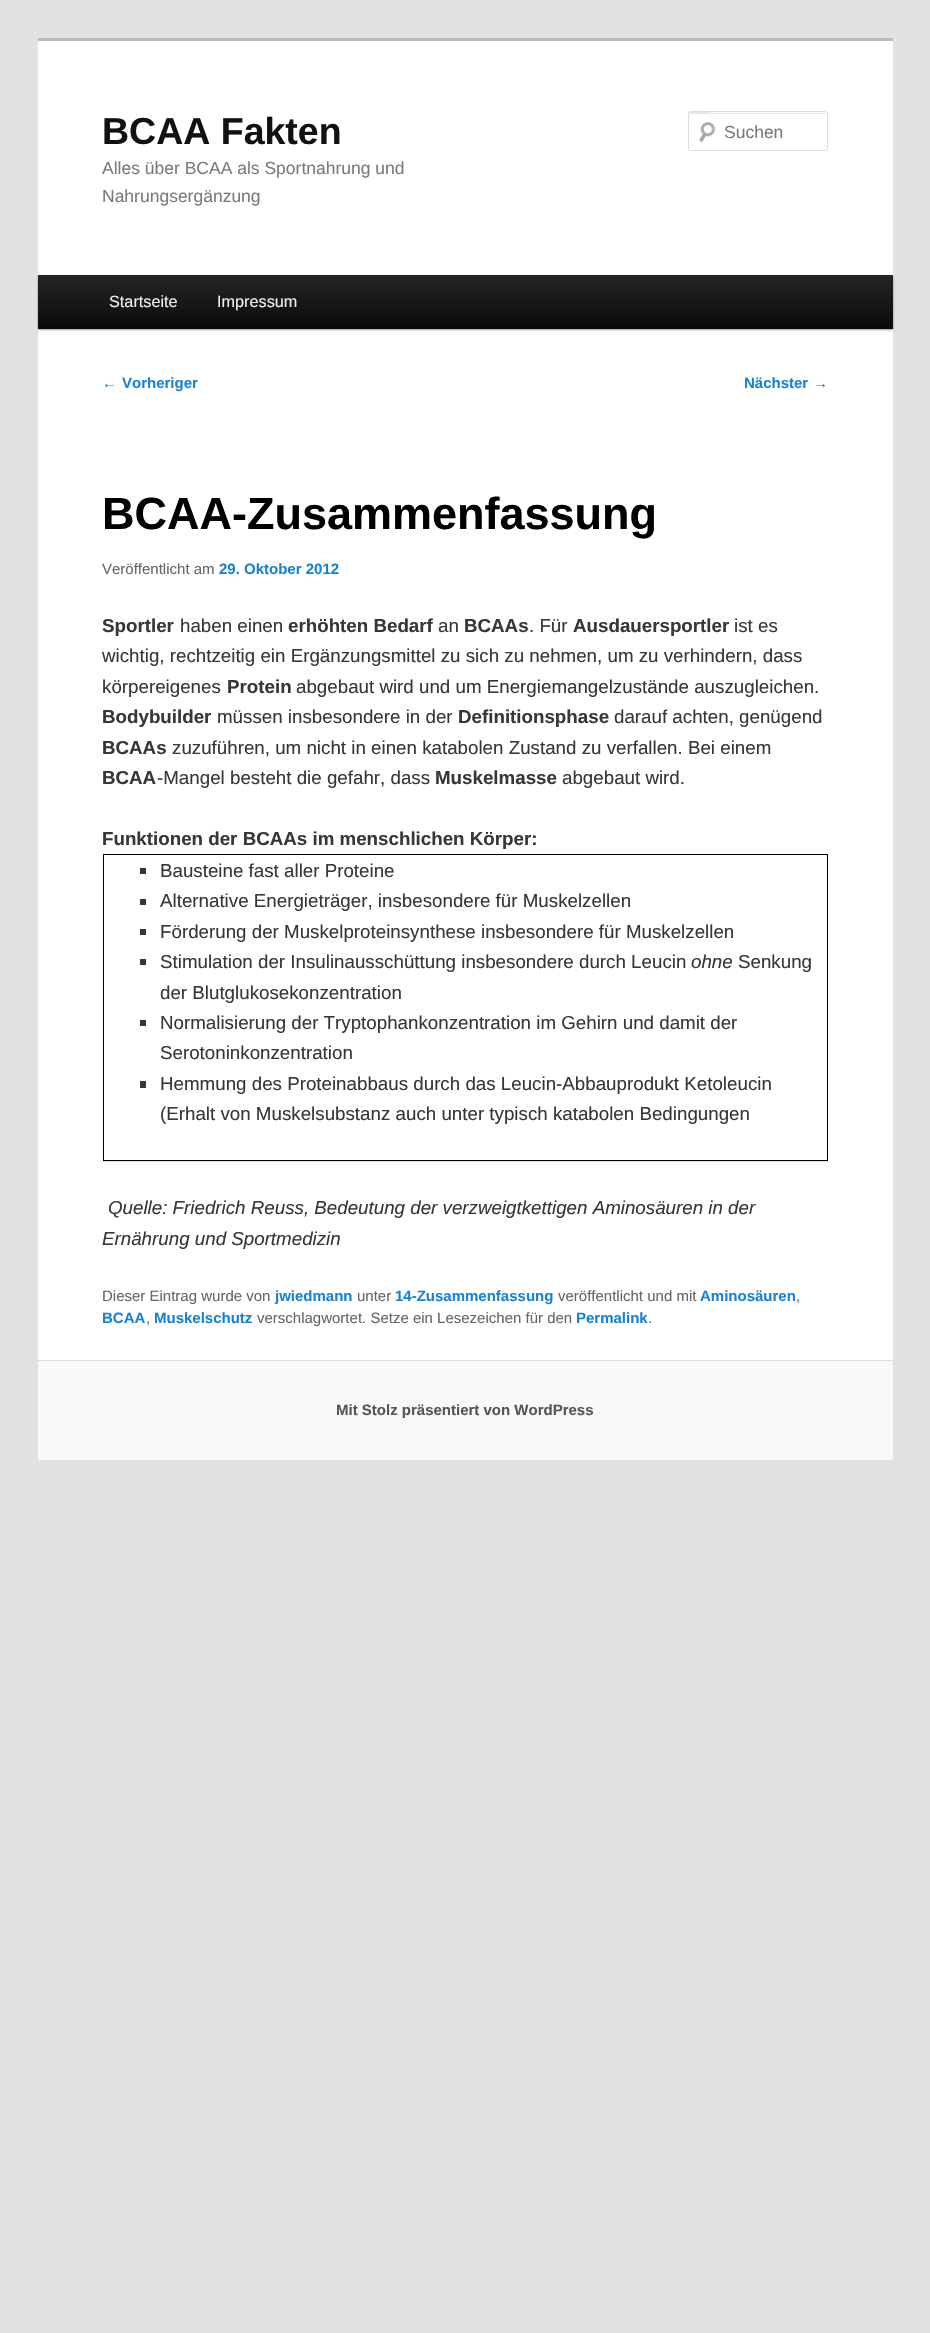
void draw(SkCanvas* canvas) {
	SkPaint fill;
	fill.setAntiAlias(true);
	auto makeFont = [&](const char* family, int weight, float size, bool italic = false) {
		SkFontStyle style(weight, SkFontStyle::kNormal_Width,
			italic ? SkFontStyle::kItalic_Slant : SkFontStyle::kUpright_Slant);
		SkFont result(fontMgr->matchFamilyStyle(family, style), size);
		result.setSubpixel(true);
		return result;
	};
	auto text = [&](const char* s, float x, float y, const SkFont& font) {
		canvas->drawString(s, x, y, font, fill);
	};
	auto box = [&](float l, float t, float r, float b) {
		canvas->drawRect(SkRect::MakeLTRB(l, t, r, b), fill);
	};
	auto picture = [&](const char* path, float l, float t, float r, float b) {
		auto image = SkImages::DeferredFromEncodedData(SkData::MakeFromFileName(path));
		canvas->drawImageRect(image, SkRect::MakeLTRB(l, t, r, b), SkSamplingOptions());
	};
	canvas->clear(0xFFE2E2E2);
	fill.setColor(0xFFFFFFFF);
	box(38, 41, 893, 1360);
	fill.setColor(0xFFBBBBBB);
	box(38, 38, 893, 41);
	picture("image0.png", 698, 121, 716, 143);
	fill.setColor(0xFFE6E6E6);
	canvas->drawPath(SkPathBuilder().moveTo(690, 114).lineTo(825, 114).cubicTo(826, 114, 826, 114, 826, 115).lineTo(826, 113).lineTo(712, 113).cubicTo(712, 113, 689, 107, 689, 115).cubicTo(689, 114, 689, 114, 690, 114).close().detach(), fill);
	fill.setStyle(SkPaint::kStroke_Style);
	fill.setStrokeWidth(1);
	fill.setColor(0xFFDDDDDD);
	canvas->drawRoundRect(SkRect::MakeLTRB(688.5f, 111.5f, 827.5f, 150.5f), 2, 2, fill);
	fill.setStyle(SkPaint::kFill_Style);
	fill.setColor(0x66000000);
	fill.setMaskFilter(SkMaskFilter::MakeBlur(kNormal_SkBlurStyle, 1));
	canvas->drawRect(SkRect::MakeLTRB(38, 276, 893, 330), fill);
	fill.setMaskFilter(nullptr);
	{
		const SkColor colors[] = {0xFF252525, 0xFF0A0A0A};
		const float stops[] = {0, 1};
		const SkPoint ends[] = {{465, 275}, {465, 329}};
		fill.setShader(SkGradientShader::MakeLinear(ends, colors, stops, 2, SkTileMode::kClamp));
		fill.setAlpha(255);
	}
	box(38, 275, 893, 329);
	fill.setShader(nullptr);
	fill.setColor(0xFFDDDDDD);
	box(103, 1161, 828, 1162);
	fill.setStyle(SkPaint::kStroke_Style);
	fill.setColor(0xFF000000);
	canvas->drawRect(SkRect::MakeLTRB(103.5f, 854.5f, 827.5f, 1160.5f), fill);
	fill.setStyle(SkPaint::kFill_Style);
	fill.setColor(0xFF373737);
	box(140, 868, 146, 874);
	box(140, 899, 146, 905);
	box(140, 929, 146, 935);
	box(140, 959, 146, 965);
	box(140, 1020, 146, 1026);
	box(140, 1081, 146, 1088);
	fill.setColor(0xFFF9F9F9);
	box(38, 1361, 893, 1460);
	fill.setColor(0xFFDDDDDD);
	box(38, 1360, 893, 1361);
	auto font1 = makeFont("Liberation Sans", 700, 37.5f);
	fill.setColor(0xFF111111);
	text("BCAA Fakten", 102, 144, font1);
	auto font2 = makeFont("Liberation Sans", 400, 17.5f);
	fill.setColor(0xFF7A7A7A);
	text("Alles über BCAA als Sportnahrung und", 102, 174, font2);
	text("Nahrungsergänzung", 102, 202, font2);
	text("Suchen", 724, 138, font2);
	auto font3 = makeFont("Liberation Sans", 400, 16.25f);
	fill.setColor(0xFFEEEEEE);
	text("Startseite", 109, 307, font3);
	text("Impressum", 217, 307, font3);
	auto font4 = makeFont("Liberation Sans", 400, 15);
	fill.setColor(0xFF1982D1);
	text("←", 102, 388, font4);
	auto font5 = makeFont("Liberation Sans", 700, 15);
	text("Vorheriger", 122, 388, font5);
	text("Nächster", 744, 388, font5);
	text("→", 813, 388, font4);
	auto font6 = makeFont("Liberation Sans", 700, 45);
	fill.setColor(0xFF000000);
	text("BCAA-Zusammenfassung", 102, 529, font6);
	fill.setColor(0xFF666666);
	text("Veröffentlicht am", 102, 574, font4);
	fill.setColor(0xFF1982D1);
	text("29. Oktober 2012", 219, 574, font5);
	auto font7 = makeFont("Liberation Sans", 700, 18.75f);
	fill.setColor(0xFF373737);
	text("Sportler", 102, 632, font7);
	auto font8 = makeFont("Liberation Sans", 400, 18.75f);
	text("haben einen", 180, 632, font8);
	text("erhöhten Bedarf", 288, 632, font7);
	text("an", 438, 632, font8);
	text("BCAAs", 464, 632, font7);
	text(". Für", 529, 632, font8);
	text("Ausdauersportler", 573, 632, font7);
	text("ist es", 734, 632, font8);
	text("wichtig, rechtzeitig ein Ergänzungsmittel zu sich zu nehmen, um zu verhindern, dass", 102, 662, font8);
	text("körpereigenes", 102, 693, font8);
	text("Protein", 227, 693, font7);
	text("abgebaut wird und um Energiemangelzustände auszugleichen.", 296, 693, font8);
	text("Bodybuilder", 102, 723, font7);
	text("müssen insbesondere in der", 217, 723, font8);
	text("Definitionsphase", 458, 723, font7);
	text("darauf achten, genügend", 614, 723, font8);
	text("BCAAs", 102, 754, font7);
	text("zuzuführen, um nicht in einen katabolen Zustand zu verfallen. Bei einem", 172, 754, font8);
	text("BCAA", 102, 784, font7);
	text("-Mangel besteht die gefahr, dass", 157, 784, font8);
	text("Muskelmasse", 435, 784, font7);
	text("abgebaut wird.", 562, 784, font8);
	text("Funktionen der BCAAs im menschlichen Körper:", 102, 845, font7);
	text("Bausteine fast aller Proteine", 160, 877, font8);
	text("Alternative Energieträger, insbesondere für Muskelzellen", 160, 907, font8);
	text("Förderung der Muskelproteinsynthese insbesondere für Muskelzellen", 160, 938, font8);
	text("Stimulation der Insulinausschüttung insbesondere durch Leucin", 160, 968, font8);
	auto font9 = makeFont("Liberation Sans", 400, 18.75f, true);
	text("ohne", 691, 968, font9);
	text("Senkung", 738, 968, font8);
	text("der Blutglukosekonzentration", 160, 999, font8);
	text("Normalisierung der Tryptophankonzentration im Gehirn und damit der", 160, 1029, font8);
	text("Serotoninkonzentration", 160, 1059, font8);
	text("Hemmung des Proteinabbaus durch das Leucin-Abbauprodukt Ketoleucin", 160, 1090, font8);
	text("(Erhalt von Muskelsubstanz auch unter typisch katabolen Bedingungen", 160, 1120, font8);
	text("Quelle: Friedrich Reuss, Bedeutung der verzweigtkettigen Aminosäuren in der", 108, 1214, font9);
	text("Ernährung und Sportmedizin", 102, 1245, font9);
	fill.setColor(0xFF666666);
	text("Dieser Eintrag wurde von", 102, 1301, font4);
	fill.setColor(0xFF1982D1);
	text("jwiedmann", 275, 1301, font5);
	fill.setColor(0xFF666666);
	text("unter", 357, 1301, font4);
	fill.setColor(0xFF1982D1);
	text("14-Zusammenfassung", 395, 1301, font5);
	fill.setColor(0xFF666666);
	text("veröffentlicht und mit", 558, 1301, font4);
	fill.setColor(0xFF1982D1);
	text("Aminosäuren", 700, 1301, font5);
	fill.setColor(0xFF666666);
	text(",", 796, 1301, font4);
	fill.setColor(0xFF1982D1);
	text("BCAA", 102, 1323, font5);
	fill.setColor(0xFF666666);
	text(",", 146, 1323, font4);
	fill.setColor(0xFF1982D1);
	text("Muskelschutz", 154, 1323, font5);
	fill.setColor(0xFF666666);
	text("verschlagwortet. Setze ein Lesezeichen für den", 257, 1323, font4);
	fill.setColor(0xFF1982D1);
	text("Permalink", 576, 1323, font5);
	fill.setColor(0xFF666666);
	text(".", 648, 1323, font4);
	fill.setColor(0xFF555555);
	text("Mit Stolz präsentiert von WordPress", 336, 1415, font5);
}
